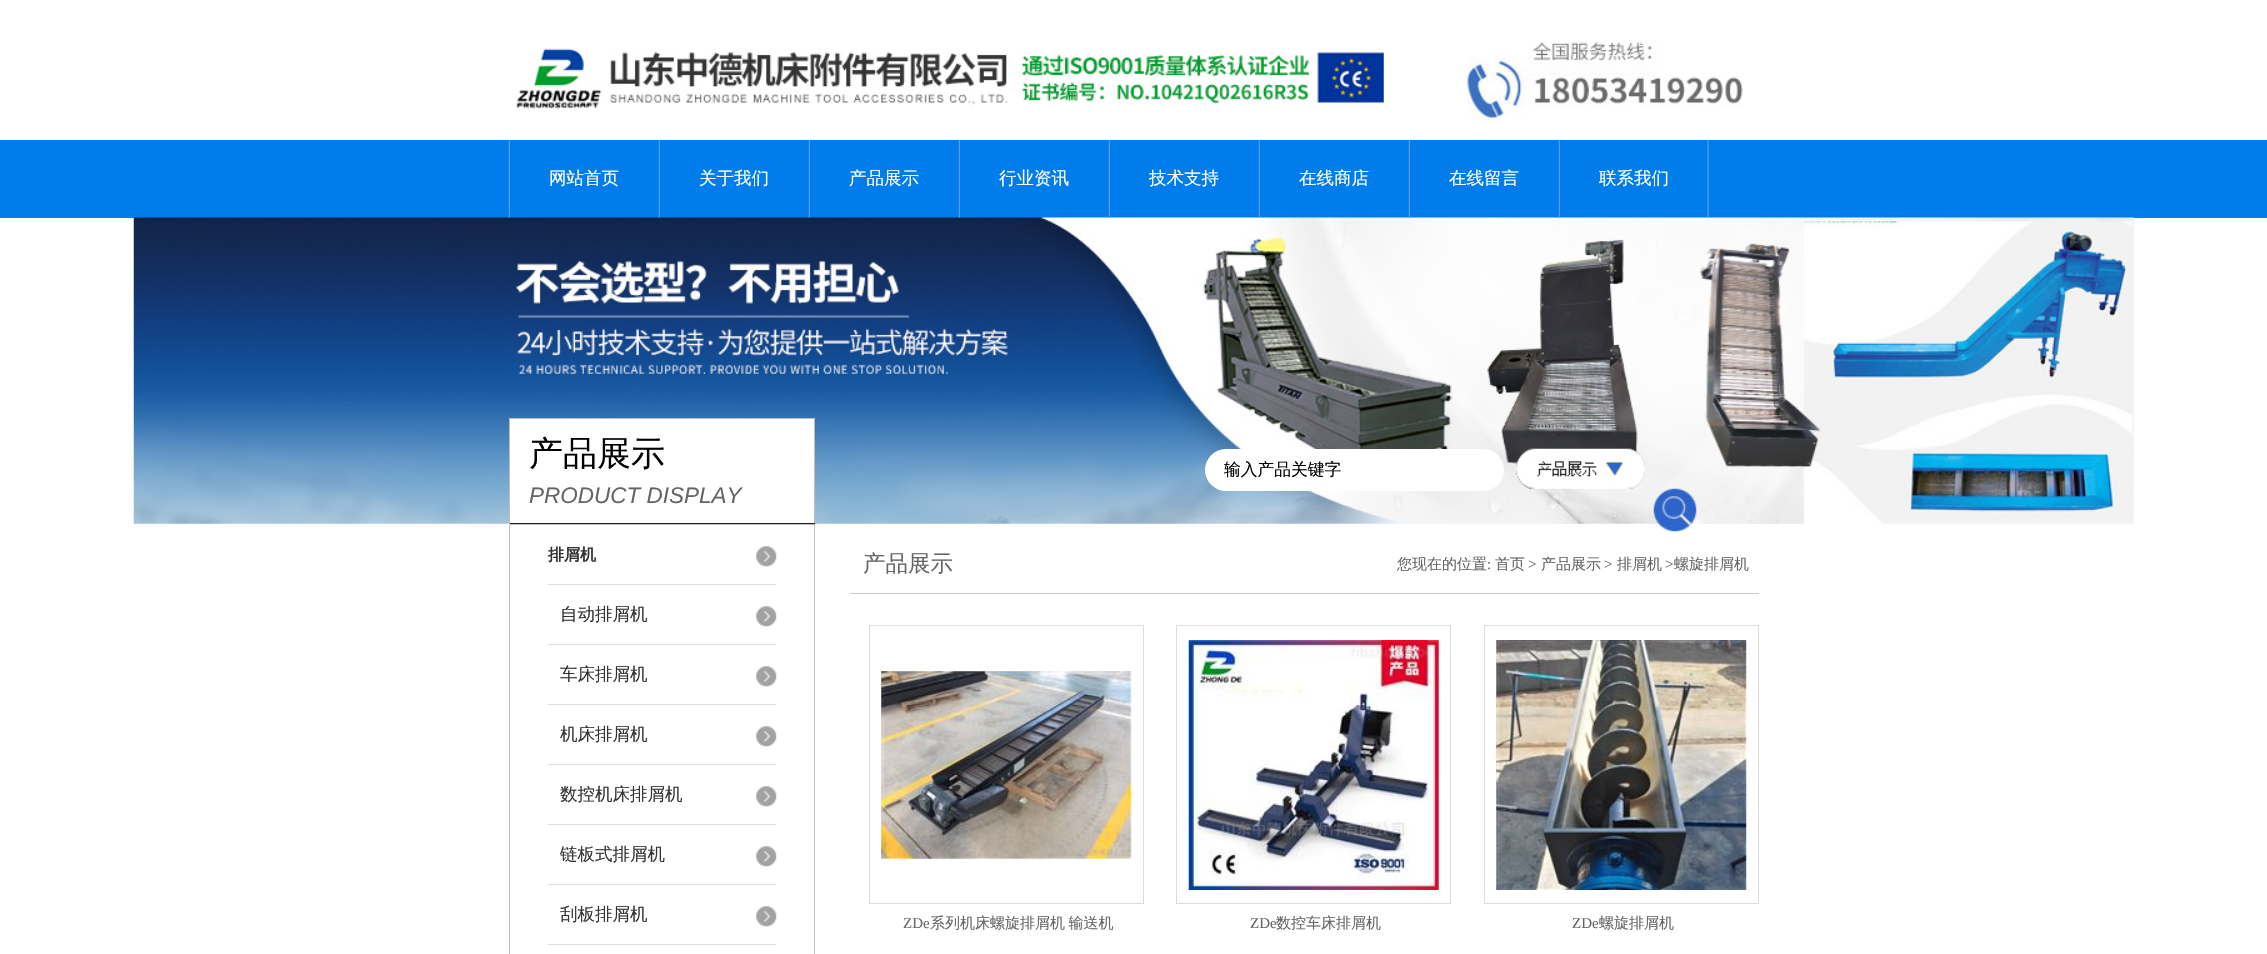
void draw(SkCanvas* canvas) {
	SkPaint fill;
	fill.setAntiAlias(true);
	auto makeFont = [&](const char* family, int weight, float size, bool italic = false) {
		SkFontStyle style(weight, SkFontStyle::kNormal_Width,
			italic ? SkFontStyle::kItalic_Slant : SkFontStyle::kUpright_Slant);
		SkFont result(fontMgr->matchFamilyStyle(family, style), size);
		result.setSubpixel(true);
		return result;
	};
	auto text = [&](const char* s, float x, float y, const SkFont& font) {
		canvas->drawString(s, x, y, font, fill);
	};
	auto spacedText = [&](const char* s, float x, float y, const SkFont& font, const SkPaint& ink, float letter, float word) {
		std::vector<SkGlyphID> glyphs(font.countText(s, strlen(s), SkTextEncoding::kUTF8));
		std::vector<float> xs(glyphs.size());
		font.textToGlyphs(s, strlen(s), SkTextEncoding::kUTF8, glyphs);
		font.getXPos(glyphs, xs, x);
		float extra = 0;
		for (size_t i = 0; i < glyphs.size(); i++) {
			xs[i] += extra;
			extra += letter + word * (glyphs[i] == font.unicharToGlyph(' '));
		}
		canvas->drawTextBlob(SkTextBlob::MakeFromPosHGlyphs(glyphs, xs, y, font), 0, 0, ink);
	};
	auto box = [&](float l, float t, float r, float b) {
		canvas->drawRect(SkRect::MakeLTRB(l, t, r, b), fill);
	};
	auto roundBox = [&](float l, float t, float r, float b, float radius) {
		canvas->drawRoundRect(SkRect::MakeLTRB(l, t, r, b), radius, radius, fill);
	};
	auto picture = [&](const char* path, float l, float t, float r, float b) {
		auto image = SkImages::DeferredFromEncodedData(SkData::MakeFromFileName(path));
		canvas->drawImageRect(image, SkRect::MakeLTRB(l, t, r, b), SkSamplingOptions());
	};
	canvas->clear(0xFFFFFFFF);
	picture("image0.png", 516, 48, 1384, 109);
	picture("image1.png", 1464, 40, 1743, 123);
	fill.setColor(0xFF007DEB);
	box(0, 140, 2267, 218);
	picture("image8.png", 133, 217, 2134, 524);
	picture("image2.png", 508, 140, 510, 218);
	picture("image2.png", 658, 140, 660, 218);
	picture("image2.png", 808, 140, 810, 218);
	picture("image2.png", 958, 140, 960, 218);
	picture("image3.png", 1108, 140, 1110, 218);
	picture("image4.png", 1258, 140, 1260, 218);
	picture("image5.png", 1408, 140, 1410, 218);
	picture("image6.png", 1558, 140, 1560, 218);
	picture("image7.png", 1707, 140, 1709, 218);
	fill.setColor(0xFFFFFFFF);
	box(510, 419, 814, 523);
	fill.setColor(0xFFBEBEBE);
	box(509, 418, 815, 419);
	box(814, 418, 815, 524);
	fill.setColor(0xFF23201D);
	box(509, 523, 815, 524);
	fill.setColor(0xFFBEBEBE);
	box(509, 418, 510, 524);
	fill.setColor(0xFFFFFFFF);
	roundBox(1205, 449, 1504, 491, 21);
	picture("image9.png", 1516, 448, 1645, 489);
	picture("image10.png", 1653, 488, 1697, 532);
	fill.setStyle(SkPaint::kStroke_Style);
	fill.setStrokeWidth(1);
	fill.setColor(0xFFBEBEBE);
	canvas->drawRect(SkRect::MakeLTRB(509.5f, 524.5f, 814.5f, 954.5f), fill);
	picture("image11.png", 756, 546, 777, 567);
	fill.setStyle(SkPaint::kFill_Style);
	fill.setColor(0xFFDDDDDD);
	box(548, 584, 776, 585);
	picture("image11.png", 756, 606, 777, 627);
	box(548, 644, 776, 645);
	picture("image11.png", 756, 666, 777, 687);
	box(548, 704, 776, 705);
	picture("image11.png", 756, 726, 777, 747);
	box(548, 764, 776, 765);
	picture("image11.png", 756, 786, 777, 807);
	box(548, 824, 776, 825);
	picture("image11.png", 756, 846, 777, 867);
	box(548, 884, 776, 885);
	picture("image11.png", 756, 906, 777, 927);
	box(548, 944, 776, 945);
	fill.setColor(0xFFCCCCCC);
	box(850, 593, 1759, 594);
	fill.setStyle(SkPaint::kStroke_Style);
	fill.setColor(0xFFDDDDDD);
	canvas->drawRect(SkRect::MakeLTRB(869.5f, 625.5f, 1143.5f, 903.5f), fill);
	picture("image12.png", 881, 671, 1132, 859);
	canvas->drawRect(SkRect::MakeLTRB(1176.5f, 625.5f, 1450.5f, 903.5f), fill);
	picture("image13.png", 1188, 640, 1439, 890);
	canvas->drawRect(SkRect::MakeLTRB(1484.5f, 625.5f, 1758.5f, 903.5f), fill);
	picture("image14.png", 1496, 640, 1747, 890);
	auto font1 = makeFont("WenQuanYi Zen Hei", 500, 17.5f);
	fill.setStyle(SkPaint::kFill_Style);
	fill.setColor(0xFFFFFFFF);
	text("网站首页", 549, 184, font1);
	text("关于我们", 699, 184, font1);
	text("产品展示", 849, 184, font1);
	text("行业资讯", 999, 184, font1);
	text("技术支持", 1149, 184, font1);
	text("在线商店", 1299, 184, font1);
	text("在线留言", 1449, 184, font1);
	text("联系我们", 1599, 184, font1);
	auto font2 = makeFont("WenQuanYi Zen Hei", 500, 34);
	fill.setColor(0xFF000000);
	text("产品展示", 529, 465, font2);
	auto font3 = makeFont("Liberation Sans", 400, 22.5f, true);
	fill.setColor(0xFF666666);
	text("PRODUCT DISPLAY", 529, 503, font3);
	auto font4 = makeFont("WenQuanYi Zen Hei", 500, 16.75f);
	fill.setColor(0xFF000000);
	text("输入产品关键字", 1224, 475, font4);
	auto font5 = makeFont("WenQuanYi Zen Hei", 700, 16);
	fill.setColor(0xFF333333);
	text("排屑机", 548, 560, font5);
	text("自动排屑机", 560, 620, font1);
	text("车床排屑机", 560, 680, font1);
	text("机床排屑机", 560, 740, font1);
	text("数控机床排屑机", 560, 800, font1);
	text("链板式排屑机", 560, 860, font1);
	text("刮板排屑机", 560, 920, font1);
	auto font6 = makeFont("WenQuanYi Zen Hei", 500, 22.5f);
	fill.setColor(0xFF666666);
	text("产品展示", 863, 571, font6);
	auto font7 = makeFont("WenQuanYi Zen Hei", 500, 15);
	text("您现在的位置", 1397, 569, font7);
	auto font8 = makeFont("Liberation Serif", 400, 15);
	text(":", 1487, 569, font8);
	text("首页", 1495, 569, font7);
	text(">", 1528, 569, font8);
	text("产品展示", 1541, 569, font7);
	text(">", 1604, 569, font8);
	text("排屑机", 1617, 569, font7);
	text(">", 1665, 569, font8);
	text("螺旋排屑机", 1674, 569, font7);
	text("ZDe", 903, 928, font8);
	spacedText("系列机床螺旋排屑机 输送机", 930, 928, font7, fill, 0, -1);
	text("ZDe", 1250, 928, font8);
	text("数控车床排屑机", 1276, 928, font7);
	text("ZDe", 1572, 928, font8);
	text("螺旋排屑机", 1599, 928, font7);
}
